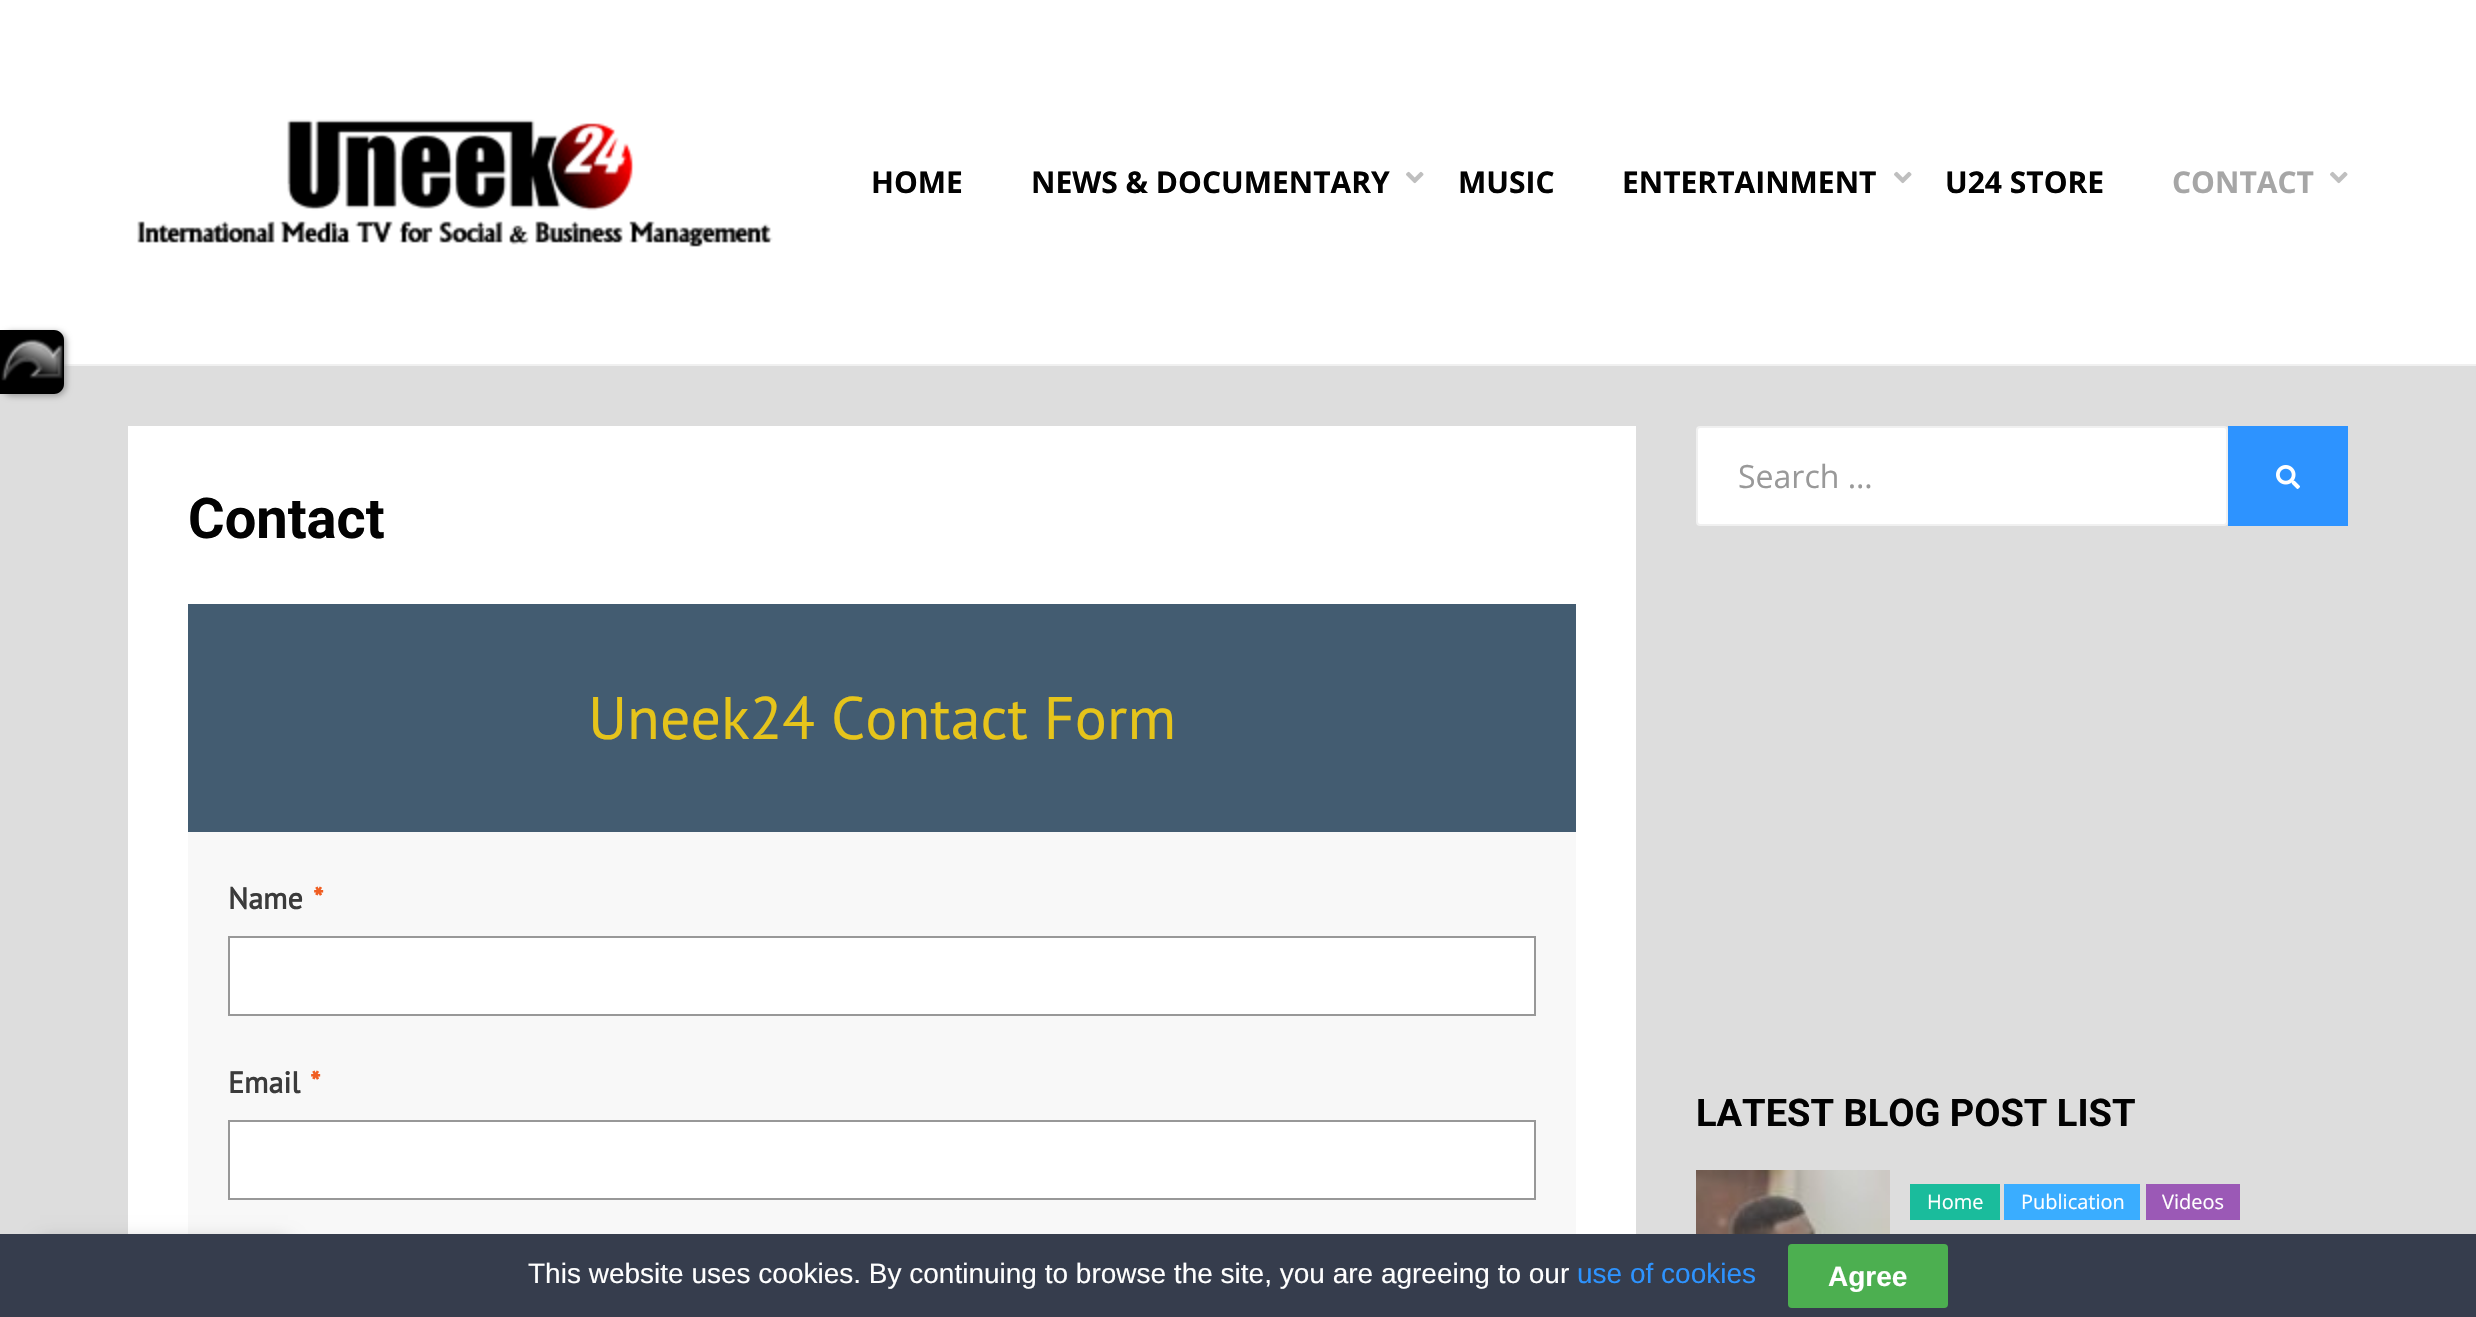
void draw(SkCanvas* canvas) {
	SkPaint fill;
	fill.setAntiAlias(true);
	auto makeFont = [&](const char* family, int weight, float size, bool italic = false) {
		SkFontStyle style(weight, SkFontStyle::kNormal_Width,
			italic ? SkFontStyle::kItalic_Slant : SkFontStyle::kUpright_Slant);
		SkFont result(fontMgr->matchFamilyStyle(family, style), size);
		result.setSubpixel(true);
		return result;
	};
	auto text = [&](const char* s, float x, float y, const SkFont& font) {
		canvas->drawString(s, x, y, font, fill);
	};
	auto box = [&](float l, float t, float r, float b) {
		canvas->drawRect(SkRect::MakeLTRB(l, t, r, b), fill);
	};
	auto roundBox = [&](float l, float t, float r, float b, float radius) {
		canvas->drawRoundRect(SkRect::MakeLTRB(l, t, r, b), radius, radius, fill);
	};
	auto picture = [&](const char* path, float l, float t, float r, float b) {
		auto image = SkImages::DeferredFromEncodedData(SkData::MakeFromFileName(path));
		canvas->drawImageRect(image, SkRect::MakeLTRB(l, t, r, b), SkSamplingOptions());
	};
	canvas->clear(0xFFDDDDDD);
	fill.setColor(0xFFFFFFFF);
	box(0, 0, 2476, 364);
	fill.setColor(0xFFF0F0F0);
	box(64, 364, 2476, 366);
	fill.setColor(0xFF999999);
	fill.setMaskFilter(SkMaskFilter::MakeBlur(kNormal_SkBlurStyle, 3));
	canvas->drawRoundRect(SkRect::MakeLTRB(2, 332, 66, 396), 10, 10, fill);
	fill.setMaskFilter(nullptr);
	fill.setColor(0xFF000000);
	canvas->drawPath(SkPathBuilder().moveTo(0, 330).lineTo(54, 330).cubicTo(59.5f, 330, 64, 334.5f, 64, 340).lineTo(64, 384).cubicTo(64, 389.5f, 59.5f, 394, 54, 394).lineTo(0, 394).close().detach(), fill);
	picture("image0.png", 1, 339, 63, 381);
	picture("image1.png", 137, 119, 773, 247);
	picture("image2.png", 1406, 171, 1424, 184);
	picture("image2.png", 1894, 171, 1912, 184);
	picture("image2.png", 2330, 171, 2348, 184);
	fill.setColor(0xFFFFFFFF);
	box(128, 426, 1636, 1234);
	fill.setColor(0xFFF8F8F8);
	box(188, 832, 1576, 1234);
	fill.setColor(0xFF435C71);
	box(188, 604, 1576, 832);
	fill.setColor(0xFFFFFFFF);
	canvas->drawRect(SkRect::MakeLTRB(229, 937, 1535, 1015), fill);
	fill.setStyle(SkPaint::kStroke_Style);
	fill.setStrokeWidth(2);
	fill.setColor(0xFF989898);
	canvas->drawRect(SkRect::MakeLTRB(229, 937, 1535, 1015), fill);
	fill.setStyle(SkPaint::kFill_Style);
	fill.setColor(0xFFFFFFFF);
	canvas->drawRect(SkRect::MakeLTRB(229, 1121, 1535, 1199), fill);
	fill.setStyle(SkPaint::kStroke_Style);
	fill.setColor(0xFF989898);
	canvas->drawRect(SkRect::MakeLTRB(229, 1121, 1535, 1199), fill);
	fill.setStyle(SkPaint::kFill_Style);
	fill.setColor(0xFFFFFFFF);
	canvas->drawRoundRect(SkRect::MakeLTRB(1697, 427, 2227, 525), 3, 3, fill);
	fill.setStyle(SkPaint::kStroke_Style);
	fill.setColor(0xFFF0F0F0);
	canvas->drawRoundRect(SkRect::MakeLTRB(1697, 427, 2227, 525), 3, 3, fill);
	fill.setStyle(SkPaint::kFill_Style);
	fill.setColor(0xFF2D93FF);
	box(2228, 426, 2348, 526);
	picture("image3.png", 2276, 465, 2300, 489);
	picture("image4.png", 1696, 1170, 1890, 1234);
	fill.setColor(0xFF1ABC9C);
	box(1910, 1184, 2000, 1220);
	fill.setColor(0xFF3AADFF);
	box(2004, 1184, 2140, 1220);
	fill.setColor(0xFF9B59B6);
	box(2146, 1184, 2240, 1220);
	fill.setColor(0x4D000000);
	fill.setMaskFilter(SkMaskFilter::MakeBlur(kNormal_SkBlurStyle, 9));
	canvas->drawRect(SkRect::MakeLTRB(40, 1242, 288, 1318), fill);
	fill.setMaskFilter(nullptr);
	fill.setColor(0xFF363D4D);
	box(0, 1234, 2476, 1317);
	fill.setColor(0xFF4CAF50);
	roundBox(1788, 1244, 1948, 1308, 4);
	auto font1 = makeFont("Open Sans", 700, 30);
	fill.setColor(0xFF020202);
	text("HOME", 871, 193, font1);
	text("NEWS & DOCUMENTARY", 1031, 193, font1);
	text("MUSIC", 1458, 193, font1);
	text("ENTERTAINMENT", 1622, 193, font1);
	text("U24 STORE", 1945, 193, font1);
	fill.setColor(0xFFA6A6A6);
	text("CONTACT", 2172, 193, font1);
	auto font2 = makeFont("Roboto", 700, 56);
	fill.setColor(0xFF020202);
	text("Contact", 188, 538, font2);
	auto font3 = makeFont("PT Sans", 400, 60);
	fill.setColor(0xFFE6C41B);
	text("Uneek24 Contact Form", 588, 739, font3);
	auto font4 = makeFont("PT Sans", 700, 30);
	fill.setColor(0xFF3B3B3B);
	text("Name", 228, 909, font4);
	fill.setColor(0xFFF05E22);
	text("*", 313, 909, font4);
	fill.setColor(0xFF3B3B3B);
	text("Email", 228, 1093, font4);
	fill.setColor(0xFFF05E22);
	text("*", 310, 1093, font4);
	auto font5 = makeFont("Open Sans", 400, 32);
	fill.setColor(0xFF999999);
	text("Search …", 1738, 488, font5);
	auto font6 = makeFont("Roboto", 700, 38);
	fill.setColor(0xFF020202);
	text("LATEST BLOG POST LIST", 1696, 1126, font6);
	auto font7 = makeFont("Open Sans", 400, 20);
	fill.setColor(0xFFFFFFFF);
	text("Home", 1927, 1209, font7);
	text("Publication", 2021, 1209, font7);
	text("Videos", 2162, 1209, font7);
	auto font8 = makeFont("Liberation Sans", 400, 28);
	text("This website uses cookies. By continuing to browse the site, you are agreeing to our", 528, 1283, font8);
	fill.setColor(0xFF2D93FF);
	text("use of cookies", 1577, 1283, font8);
	auto font9 = makeFont("Liberation Sans", 700, 28);
	fill.setColor(0xFFFFFFFF);
	text("Agree", 1828, 1286, font9);
}
